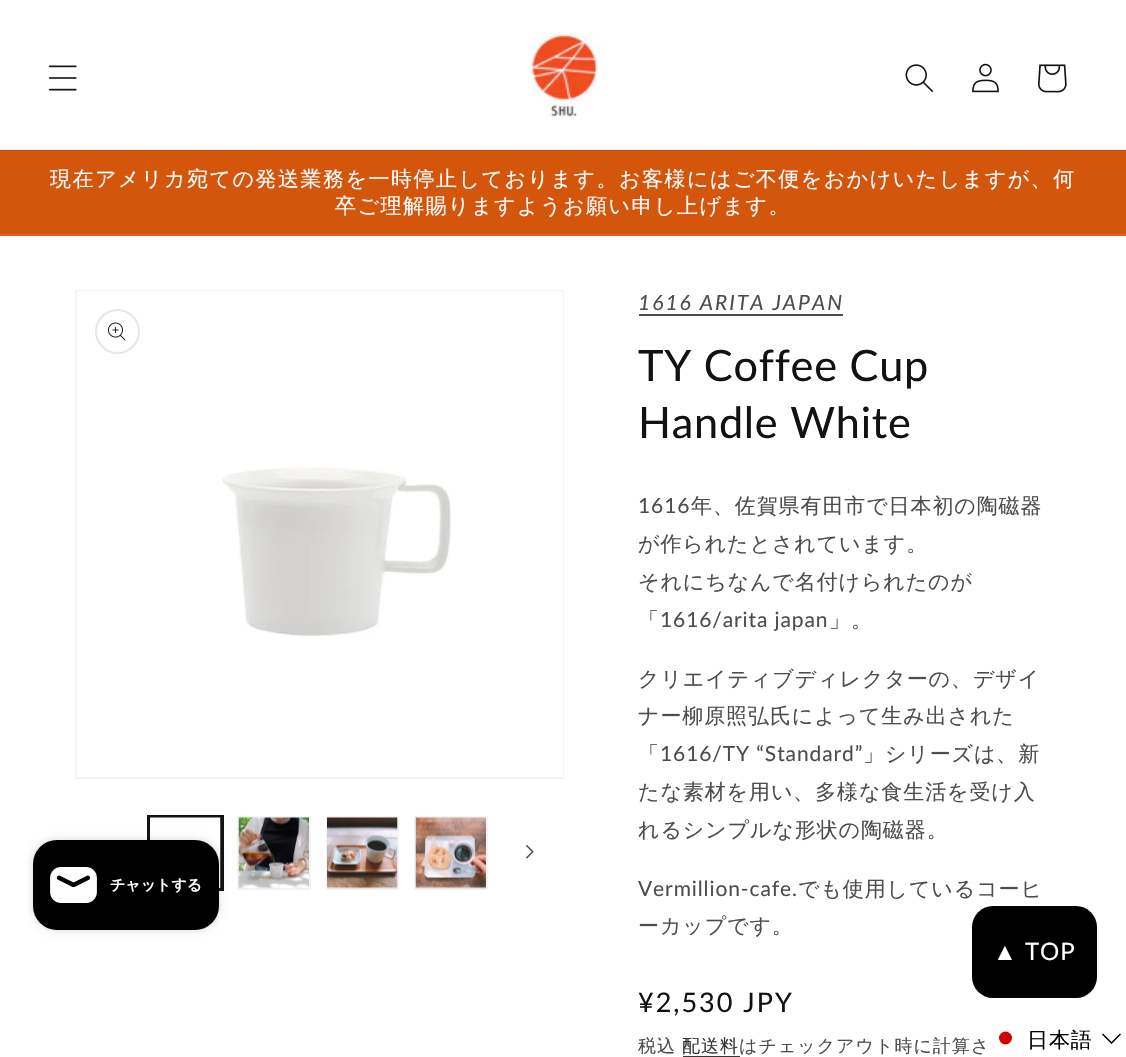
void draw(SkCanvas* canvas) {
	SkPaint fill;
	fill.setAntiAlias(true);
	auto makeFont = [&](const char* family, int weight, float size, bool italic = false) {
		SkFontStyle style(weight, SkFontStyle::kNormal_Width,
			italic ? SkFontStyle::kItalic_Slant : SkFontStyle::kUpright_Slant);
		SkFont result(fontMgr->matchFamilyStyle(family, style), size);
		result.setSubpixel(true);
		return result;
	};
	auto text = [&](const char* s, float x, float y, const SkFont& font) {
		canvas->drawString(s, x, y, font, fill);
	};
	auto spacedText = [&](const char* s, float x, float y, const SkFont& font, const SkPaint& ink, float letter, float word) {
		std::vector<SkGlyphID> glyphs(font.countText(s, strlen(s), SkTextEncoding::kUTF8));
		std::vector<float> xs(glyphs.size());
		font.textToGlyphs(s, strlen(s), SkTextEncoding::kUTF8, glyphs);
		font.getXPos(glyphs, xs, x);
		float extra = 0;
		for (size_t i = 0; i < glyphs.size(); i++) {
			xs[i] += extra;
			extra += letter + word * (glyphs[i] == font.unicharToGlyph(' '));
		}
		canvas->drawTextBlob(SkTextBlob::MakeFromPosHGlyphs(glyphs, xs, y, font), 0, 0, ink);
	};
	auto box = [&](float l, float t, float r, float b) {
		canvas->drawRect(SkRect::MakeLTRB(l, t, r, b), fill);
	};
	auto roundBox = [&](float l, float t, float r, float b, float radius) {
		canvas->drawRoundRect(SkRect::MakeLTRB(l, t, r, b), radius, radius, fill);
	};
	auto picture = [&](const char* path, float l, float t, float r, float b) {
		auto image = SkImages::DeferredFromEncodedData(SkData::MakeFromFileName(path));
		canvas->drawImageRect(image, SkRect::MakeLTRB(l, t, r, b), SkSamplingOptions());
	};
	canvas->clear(0xFFFFFFFF);
	fill.setColor(0xFFECECEC);
	box(0, 149, 1126, 150);
	picture("image0.png", 48, 65, 77, 91);
	picture("image1.png", 530, 33, 603, 118);
	picture("image2.png", 905, 64, 933, 92);
	picture("image3.png", 972, 63, 999, 93);
	picture("image4.png", 1038, 64, 1067, 93);
	fill.setColor(0xFFD4560D);
	box(0, 151, 1126, 234);
	fill.setColor(0xFFC4510D);
	box(0, 150, 1126, 151);
	fill.setColor(0xFFD76420);
	box(0, 234, 1126, 236);
	fill.setStyle(SkPaint::kStroke_Style);
	fill.setStrokeWidth(2);
	fill.setColor(0xFF121212);
	canvas->drawRect(SkRect::MakeLTRB(148, 816, 223, 890), fill);
	canvas->drawRect(SkRect::MakeLTRB(150, 817, 221, 889), fill);
	picture("image8.png", 150, 817, 221, 889);
	fill.setStyle(SkPaint::kFill_Style);
	fill.setColor(0x26000000);
	fill.setMaskFilter(SkMaskFilter::MakeBlur(kNormal_SkBlurStyle, 4));
	canvas->drawRoundRect(SkRect::MakeLTRB(33, 840, 219, 930), 24, 24, fill);
	fill.setMaskFilter(nullptr);
	fill.setColor(0xFF000000);
	roundBox(33, 840, 219, 930, 24);
	picture("image5.png", 50, 867, 97, 903);
	fill.setStyle(SkPaint::kStroke_Style);
	fill.setColor(0xFFF3F3F3);
	canvas->drawRect(SkRect::MakeLTRB(76, 291, 563, 778), fill);
	picture("image6.png", 77, 291, 563, 777);
	fill.setColor(0xFFE7E7E7);
	canvas->drawCircle(117.5f, 331.5f, 21.5f, fill);
	picture("image7.png", 108, 322, 126, 341);
	fill.setColor(0xFFF3F3F3);
	canvas->drawRect(SkRect::MakeLTRB(238, 817, 310, 889), fill);
	picture("image9.png", 238, 817, 309, 889);
	canvas->drawRect(SkRect::MakeLTRB(327, 817, 398, 889), fill);
	picture("image10.png", 327, 817, 398, 889);
	canvas->drawRect(SkRect::MakeLTRB(415, 817, 487, 889), fill);
	picture("image11.png", 415, 817, 486, 889);
	picture("image12.png", 526, 845, 534, 859);
	fill.setStyle(SkPaint::kFill_Style);
	fill.setColor(0xFF4D4D4D);
	box(639, 314, 843, 316);
	fill.setColor(0xFF363636);
	box(683, 1056, 740, 1057);
	fill.setColor(0xFF000000);
	roundBox(972, 906, 1097, 998, 21);
	fill.setColor(0xFFD30000);
	canvas->drawCircle(1005.5f, 1038, 6.5f, fill);
	fill.setStyle(SkPaint::kStroke_Style);
	fill.setStrokeWidth(1.5f);
	fill.setColor(0xFF000000);
	canvas->drawPath(SkPathBuilder().moveTo(1102.5f, 1034).lineTo(1111.5f, 1043).lineTo(1120.5f, 1034).detach(), fill);
	auto font1 = makeFont("WenQuanYi Zen Hei", 500, 21);
	fill.setStyle(SkPaint::kFill_Style);
	fill.setColor(0xFFFFFFFF);
	spacedText("現在アメリカ宛ての発送業務を一時停止しております。お客様にはご不便をおかけいたしますが、何", 50, 186, font1, fill, 1.5f, 0);
	spacedText("卒ご理解賜りますようお願い申し上げます。", 335, 213, font1, fill, 1.5f, 0);
	auto font2 = makeFont("WenQuanYi Zen Hei", 700, 15);
	text("チャットする", 110, 890, font2);
	auto font3 = makeFont("Lato", 400, 21, true);
	fill.setColor(0xFF4D4D4D);
	spacedText("1616 ARITA JAPAN", 638, 310, font3, fill, 2, 0);
	auto font4 = makeFont("Lato", 400, 43.25f);
	fill.setColor(0xFF121212);
	spacedText("TY Coffee Cup", 638, 381, font4, fill, 0.75f, 0);
	spacedText("Handle White", 638, 438, font4, fill, 0.75f, 0);
	auto font5 = makeFont("Lato", 400, 21);
	fill.setColor(0xFF4D4D4D);
	spacedText("1616", 638, 513, font5, fill, 0.9f, 0);
	spacedText("年、佐賀県有田市で日本初の陶磁器", 691, 513, font1, fill, 0.9f, 0);
	spacedText("が作られたとされています。", 638, 551, font1, fill, 0.9f, 0);
	spacedText("それにちなんで名付けられたのが", 638, 589, font1, fill, 0.9f, 0);
	spacedText("「", 638, 627, font1, fill, 0.9f, 0);
	spacedText("1616/arita japan", 660, 627, font5, fill, 0.9f, 0);
	spacedText("」。", 829, 627, font1, fill, 0.9f, 0);
	spacedText("クリエイティブディレクターの、デザイ", 638, 686, font1, fill, 0.9f, 0);
	spacedText("ナー柳原照弘氏によって生み出された", 638, 723, font1, fill, 0.9f, 0);
	spacedText("「", 638, 761, font1, fill, 0.9f, 0);
	spacedText("1616/TY “Standard”", 660, 761, font5, fill, 0.9f, 0);
	spacedText("」シリーズは、新", 863, 761, font1, fill, 0.9f, 0);
	spacedText("たな素材を用い、多様な食生活を受け入", 638, 799, font1, fill, 0.9f, 0);
	spacedText("れるシンプルな形状の陶磁器。", 638, 837, font1, fill, 0.9f, 0);
	spacedText("Vermillion-cafe.", 638, 896, font5, fill, 0.9f, 0);
	spacedText("でも使用しているコーヒ", 798, 896, font1, fill, 0.9f, 0);
	spacedText("ーカップです。", 638, 933, font1, fill, 0.9f, 0);
	auto font6 = makeFont("Lato", 400, 27);
	fill.setColor(0xFF121212);
	spacedText("¥2,530 JPY", 638, 1012, font6, fill, 2, 0);
	auto font7 = makeFont("WenQuanYi Zen Hei", 500, 18);
	fill.setColor(0xFF4D4D4D);
	spacedText("税込", 638, 1052, font7, fill, 1, 0);
	fill.setColor(0xFF363636);
	spacedText("配送料", 682, 1052, font7, fill, 1, 0);
	fill.setColor(0xFF4D4D4D);
	spacedText("はチェックアウト時に計算さ", 739, 1052, font7, fill, 1, 0);
	auto font8 = makeFont("Liberation Sans", 400, 24);
	fill.setColor(0xFFFFFFFF);
	spacedText("▲", 993, 960, font8, fill, 0.9f, 0);
	auto font9 = makeFont("Lato", 400, 24);
	spacedText("TOP", 1025, 960, font9, fill, 0.9f, 0);
	fill.setColor(0xFF000000);
	spacedText("日本語", 1027, 1047, font1, fill, 0.9f, 0);
}
